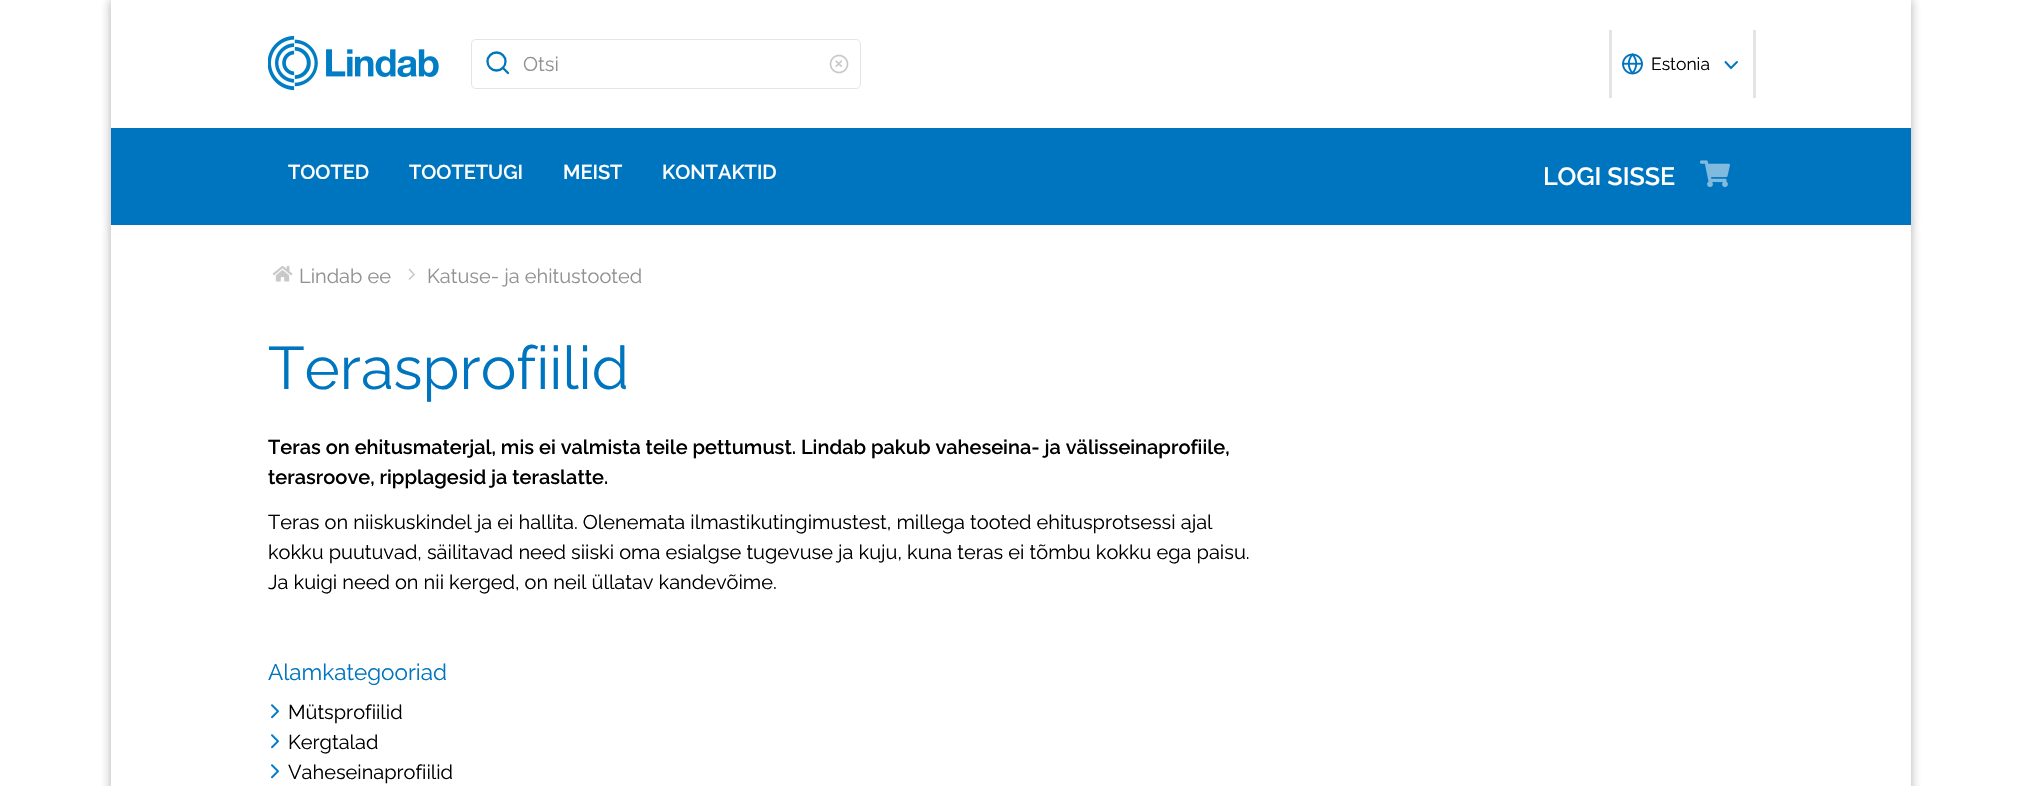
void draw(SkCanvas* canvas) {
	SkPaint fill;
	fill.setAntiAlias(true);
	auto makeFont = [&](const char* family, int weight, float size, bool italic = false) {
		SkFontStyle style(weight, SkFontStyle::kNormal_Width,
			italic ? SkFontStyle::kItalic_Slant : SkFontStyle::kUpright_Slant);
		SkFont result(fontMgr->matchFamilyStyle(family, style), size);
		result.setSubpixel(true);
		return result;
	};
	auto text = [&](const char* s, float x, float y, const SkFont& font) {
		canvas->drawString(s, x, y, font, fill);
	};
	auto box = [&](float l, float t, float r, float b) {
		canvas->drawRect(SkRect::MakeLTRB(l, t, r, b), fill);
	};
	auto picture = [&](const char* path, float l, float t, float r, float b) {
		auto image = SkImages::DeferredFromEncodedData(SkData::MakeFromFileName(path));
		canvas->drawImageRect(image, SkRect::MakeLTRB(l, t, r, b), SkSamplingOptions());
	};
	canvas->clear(0xFFFFFFFF);
	fill.setColor(0x332A2A2A);
	fill.setMaskFilter(SkMaskFilter::MakeBlur(kNormal_SkBlurStyle, 5));
	canvas->drawRect(SkRect::MakeLTRB(111, 0, 1911, 225), fill);
	fill.setMaskFilter(nullptr);
	fill.setMaskFilter(SkMaskFilter::MakeBlur(kNormal_SkBlurStyle, 5));
	canvas->drawRect(SkRect::MakeLTRB(111, 0, 1911, 225), fill);
	fill.setMaskFilter(nullptr);
	fill.setColor(0xFFFFFFFF);
	box(111, 0, 1911, 128);
	picture("image0.png", 268, 35, 439, 91);
	fill.setStyle(SkPaint::kStroke_Style);
	fill.setStrokeWidth(1);
	fill.setColor(0xFFE4E4E4);
	canvas->drawRoundRect(SkRect::MakeLTRB(471.5f, 39.5f, 860.5f, 88.5f), 4.5f, 4.5f, fill);
	fill.setStrokeWidth(2.3f);
	fill.setColor(0xFF0075BF);
	canvas->drawCircle(496.5f, 61.5f, 9, fill);
	fill.setStrokeCap(SkPaint::kRound_Cap);
	fill.setStrokeJoin(SkPaint::kRound_Join);
	canvas->drawPath(SkPathBuilder().moveTo(508, 73).lineTo(503, 68).detach(), fill);
	picture("image1.png", 829, 54, 849, 74);
	fill.setStyle(SkPaint::kFill_Style);
	fill.setColor(0xFFE4E4E4);
	box(1753, 30, 1756, 98);
	box(1609, 30, 1612, 98);
	picture("image2.png", 1622, 53, 1643, 75);
	fill.setStyle(SkPaint::kStroke_Style);
	fill.setStrokeWidth(1.9f);
	fill.setColor(0xFF0075BF);
	canvas->drawPath(SkPathBuilder().moveTo(1725.5f, 62).lineTo(1731, 68).lineTo(1737, 62).detach(), fill);
	fill.setStyle(SkPaint::kFill_Style);
	fill.setColor(0x332A2A2A);
	fill.setMaskFilter(SkMaskFilter::MakeBlur(kNormal_SkBlurStyle, 5));
	canvas->drawRect(SkRect::MakeLTRB(111, 225, 1911, 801), fill);
	fill.setMaskFilter(nullptr);
	fill.setMaskFilter(SkMaskFilter::MakeBlur(kNormal_SkBlurStyle, 5));
	canvas->drawRect(SkRect::MakeLTRB(111, 225, 1911, 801), fill);
	fill.setMaskFilter(nullptr);
	fill.setColor(0xFF0075BF);
	box(111, 128, 1911, 225);
	picture("image3.png", 1700, 160, 1730, 187);
	fill.setColor(0xFFFFFFFF);
	box(111, 225, 1911, 786);
	picture("image4.png", 273, 266, 293, 282);
	fill.setStyle(SkPaint::kStroke_Style);
	fill.setStrokeWidth(1.6f);
	fill.setColor(0xFFC9C9C9);
	canvas->drawPath(SkPathBuilder().moveTo(409.5f, 279).lineTo(414, 274.5f).lineTo(409.5f, 269.5f).detach(), fill);
	picture("image5.png", 271, 704, 279, 719);
	picture("image5.png", 271, 734, 279, 749);
	picture("image5.png", 271, 764, 279, 779);
	auto font1 = makeFont("Raleway", 100, 20);
	fill.setStyle(SkPaint::kFill_Style);
	fill.setColor(0xFF919191);
	text("Otsi", 523, 71, font1);
	auto font2 = makeFont("Raleway", 100, 17.5f);
	fill.setColor(0xFF000000);
	text("Estonia", 1651, 70, font2);
	auto font3 = makeFont("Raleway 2", 100, 20);
	fill.setColor(0xFFFFFFFF);
	text("TOOTED", 288, 179, font3);
	text("TOOTETUGI", 409, 179, font3);
	text("MEIST", 563, 179, font3);
	text("KONTAKTID", 662, 179, font3);
	auto font4 = makeFont("Raleway 2", 100, 25);
	text("LOGI SISSE", 1543, 185, font4);
	fill.setColor(0xFF919191);
	text("Lindab ee", 299, 283, font1);
	text("Katuse- ja ehitustooted", 427, 283, font1);
	auto font5 = makeFont("Raleway", 100, 60);
	fill.setColor(0xFF0075BF);
	text("Terasprofiilid", 268, 389, font5);
	fill.setColor(0xFF000000);
	text("Teras on ehitusmaterjal, mis ei valmista teile pettumust. Lindab pakub vaheseina- ja välisseinaprofiile,", 268, 454, font3);
	text("terasroove, ripplagesid ja teraslatte.", 268, 484, font3);
	text("Teras on niiskuskindel ja ei hallita. Olenemata ilmastikutingimustest, millega tooted ehitusprotsessi ajal", 268, 529, font1);
	text("kokku puutuvad, säilitavad need siiski oma esialgse tugevuse ja kuju, kuna teras ei tõmbu kokku ega paisu.", 268, 559, font1);
	text("Ja kuigi need on nii kerged, on neil üllatav kandevõime.", 268, 589, font1);
	auto font6 = makeFont("Raleway", 100, 22.5f);
	fill.setColor(0xFF0075BF);
	text("Alamkategooriad", 268, 680, font6);
	fill.setColor(0xFF000000);
	text("Mütsprofiilid", 288, 719, font1);
	text("Kergtalad", 288, 749, font1);
	text("Vaheseinaprofiilid", 288, 779, font1);
}
